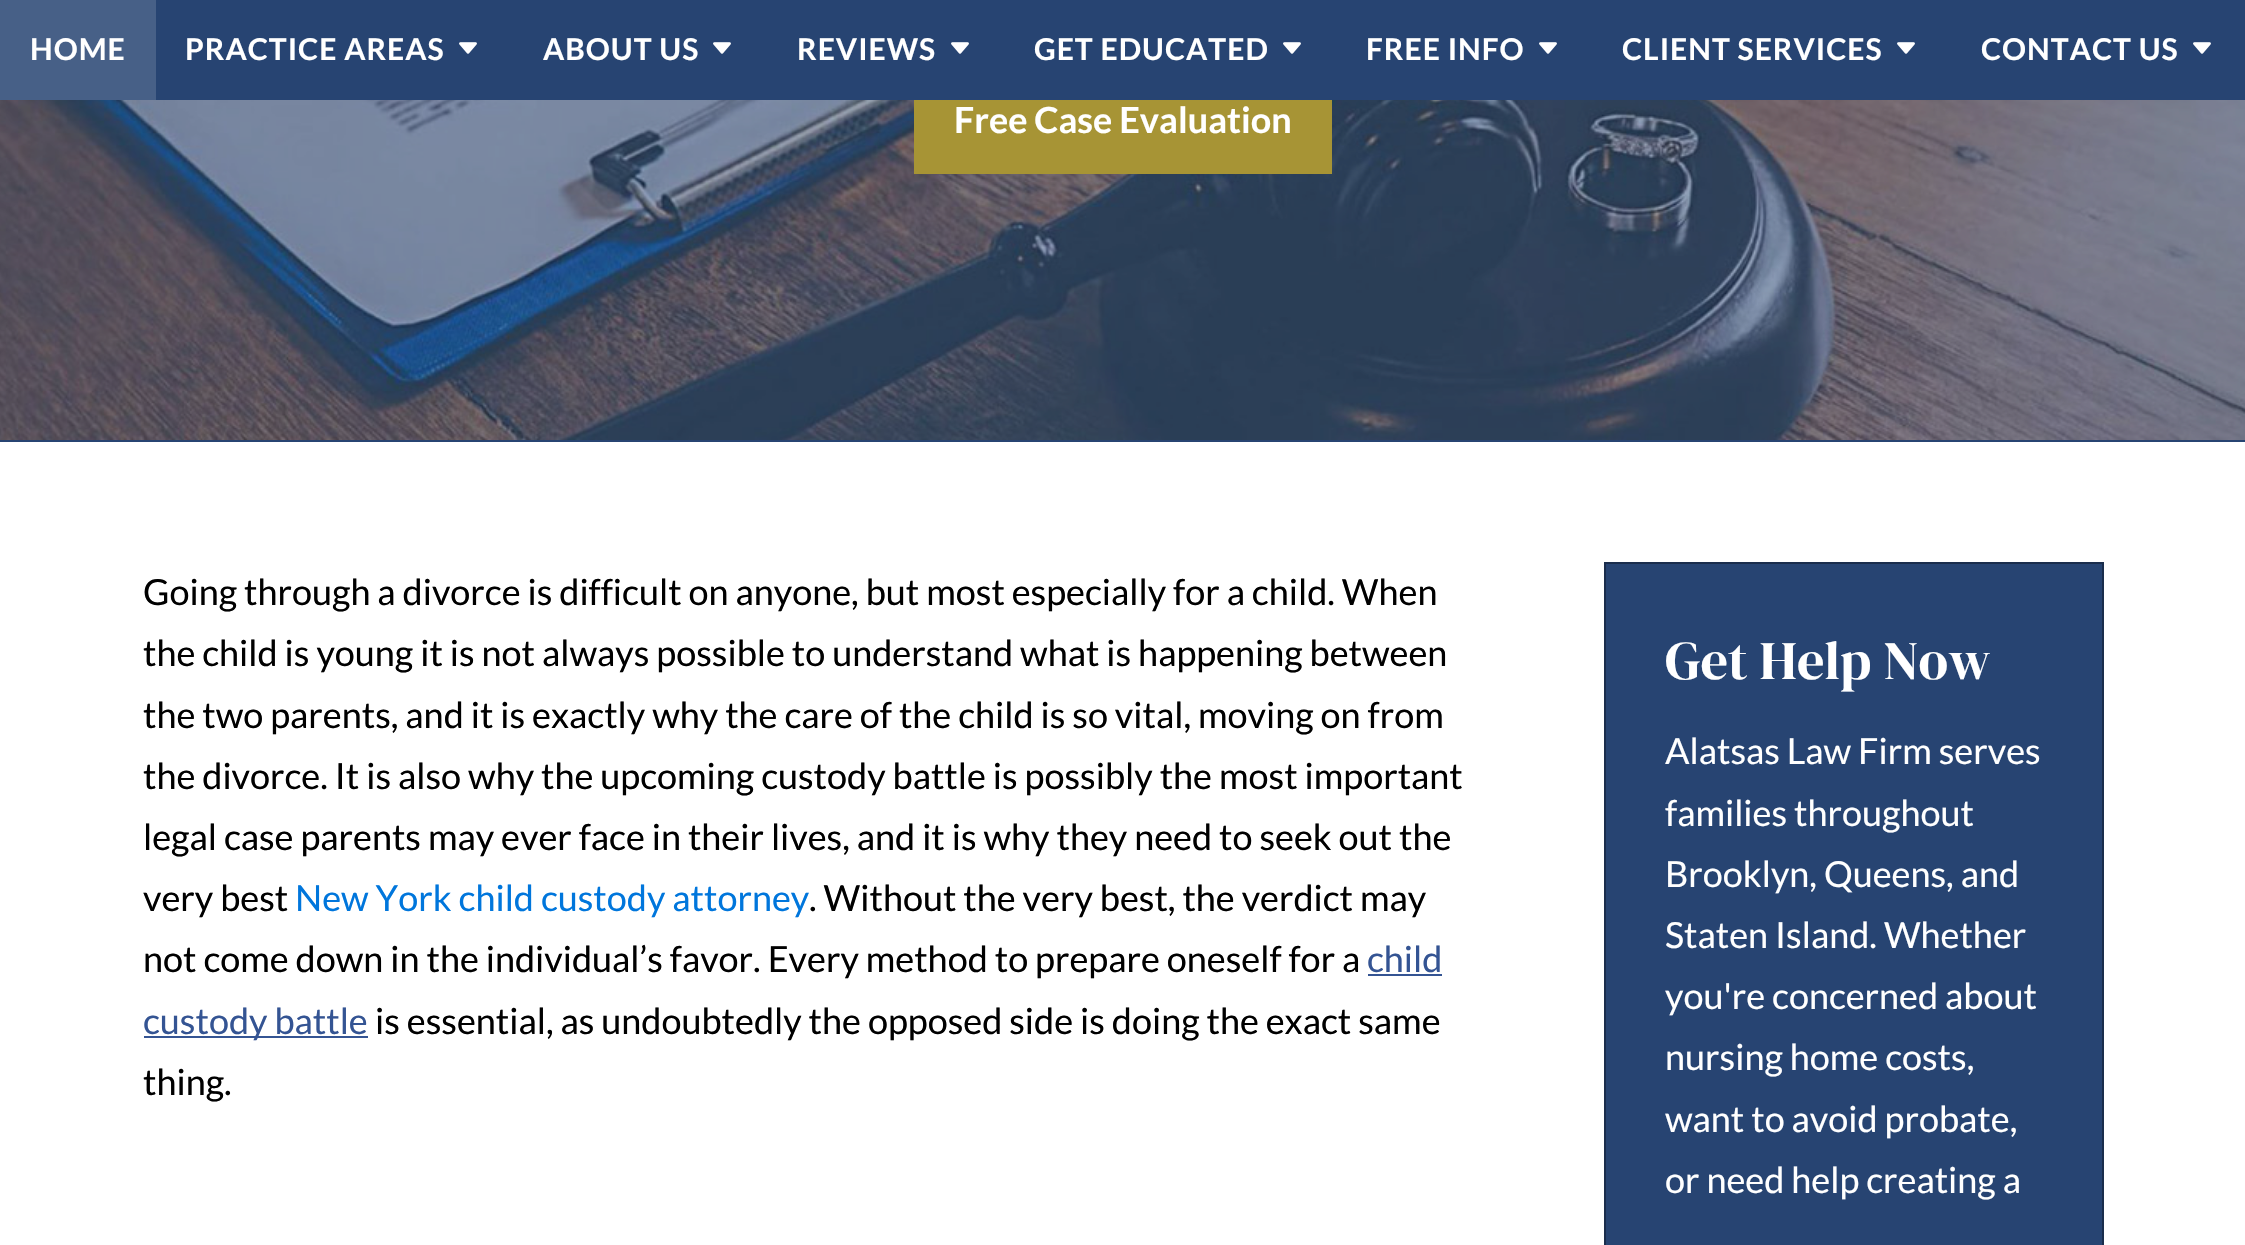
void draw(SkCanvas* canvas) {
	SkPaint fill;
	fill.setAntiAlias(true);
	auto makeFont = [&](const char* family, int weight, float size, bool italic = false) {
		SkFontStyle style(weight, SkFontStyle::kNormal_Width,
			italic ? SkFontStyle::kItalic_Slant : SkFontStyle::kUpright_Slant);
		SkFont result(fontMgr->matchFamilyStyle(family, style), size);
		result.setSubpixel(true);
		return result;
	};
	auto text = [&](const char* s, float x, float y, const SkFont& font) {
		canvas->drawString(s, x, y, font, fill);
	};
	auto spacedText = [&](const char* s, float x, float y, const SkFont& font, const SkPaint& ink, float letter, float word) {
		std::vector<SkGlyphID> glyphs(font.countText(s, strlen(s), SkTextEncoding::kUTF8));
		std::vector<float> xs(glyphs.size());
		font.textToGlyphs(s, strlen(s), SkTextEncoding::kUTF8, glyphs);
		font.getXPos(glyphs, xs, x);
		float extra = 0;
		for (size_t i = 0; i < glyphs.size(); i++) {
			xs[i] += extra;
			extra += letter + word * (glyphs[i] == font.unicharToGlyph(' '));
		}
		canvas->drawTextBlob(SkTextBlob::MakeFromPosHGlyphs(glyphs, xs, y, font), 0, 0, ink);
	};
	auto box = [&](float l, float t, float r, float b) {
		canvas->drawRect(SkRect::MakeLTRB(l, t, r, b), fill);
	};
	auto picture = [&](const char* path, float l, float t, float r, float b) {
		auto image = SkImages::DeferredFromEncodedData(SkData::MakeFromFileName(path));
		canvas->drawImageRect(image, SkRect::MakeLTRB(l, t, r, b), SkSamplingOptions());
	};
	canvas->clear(0xFFFFFFFF);
	fill.setColor(0xFF274472);
	box(156, 0, 2245, 100);
	fill.setColor(0xFF476087);
	box(0, 0, 156, 100);
	picture("image0.png", 459, 42, 477, 54);
	picture("image0.png", 713, 42, 731, 54);
	picture("image0.png", 951, 42, 969, 54);
	picture("image0.png", 1283, 42, 1301, 54);
	picture("image0.png", 1539, 42, 1557, 54);
	picture("image0.png", 1897, 42, 1915, 54);
	picture("image0.png", 2193, 42, 2211, 54);
	fill.setColor(0xFF274472);
	box(0, 440, 2245, 442);
	picture("image1.png", 0, 100, 2245, 440);
	fill.setColor(0xFFA79435);
	box(914, 100, 1332, 174);
	fill.setColor(0xFF345493);
	box(1368, 974, 1442, 976);
	box(144, 1036, 368, 1038);
	fill.setColor(0xFF274472);
	canvas->drawRect(SkRect::MakeLTRB(1605, 563, 2103, 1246), fill);
	fill.setStyle(SkPaint::kStroke_Style);
	fill.setStrokeWidth(2);
	fill.setColor(0xFF1A2D4C);
	canvas->drawRect(SkRect::MakeLTRB(1605, 563, 2103, 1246), fill);
	auto font1 = makeFont("Lato", 700, 30);
	fill.setStyle(SkPaint::kFill_Style);
	fill.setColor(0xFFFFFFFF);
	spacedText("HOME", 30, 60, font1, fill, 1, 0);
	spacedText("PRACTICE AREAS", 185, 60, font1, fill, 1, 0);
	spacedText("ABOUT US", 543, 60, font1, fill, 1, 0);
	spacedText("REVIEWS", 797, 60, font1, fill, 1, 0);
	spacedText("GET EDUCATED", 1034, 60, font1, fill, 1, 0);
	spacedText("FREE INFO", 1366, 60, font1, fill, 1, 0);
	spacedText("CLIENT SERVICES", 1622, 60, font1, fill, 1, 0);
	spacedText("CONTACT US", 1981, 60, font1, fill, 1, 0);
	auto font2 = makeFont("Lato", 700, 36);
	text("Free Case Evaluation", 954, 133, font2);
	auto font3 = makeFont("Lato", 400, 36);
	fill.setColor(0xFF000000);
	text("Going through a divorce is difficult on anyone, but most especially for a child. When", 143, 605, font3);
	text("the child is young it is not always possible to understand what is happening between", 143, 666, font3);
	text("the two parents, and it is exactly why the care of the child is so vital, moving on from", 143, 728, font3);
	text("the divorce. It is also why the upcoming custody battle is possibly the most important", 143, 789, font3);
	text("legal case parents may ever face in their lives, and it is why they need to seek out the", 143, 850, font3);
	text("very best", 143, 911, font3);
	fill.setColor(0xFF0076DC);
	text("New York child custody attorney", 295, 911, font3);
	fill.setColor(0xFF000000);
	text(". Without the very best, the verdict may", 809, 911, font3);
	text("not come down in the individual’s favor. Every method to prepare oneself for a", 143, 972, font3);
	fill.setColor(0xFF345493);
	text("child", 1367, 972, font3);
	text("custody battle", 143, 1034, font3);
	fill.setColor(0xFF000000);
	text("is essential, as undoubtedly the opposed side is doing the exact same", 375, 1034, font3);
	text("thing.", 143, 1095, font3);
	auto font4 = makeFont("DM Serif Display", 400, 54.25f);
	fill.setColor(0xFFFFFFFF);
	text("Get Help Now", 1665, 679, font4);
	text("Alatsas Law Firm serves", 1665, 764, font3);
	text("families throughout", 1665, 826, font3);
	text("Brooklyn, Queens, and", 1665, 887, font3);
	text("Staten Island. Whether", 1665, 948, font3);
	text("you're concerned about", 1665, 1009, font3);
	text("nursing home costs,", 1665, 1070, font3);
	text("want to avoid probate,", 1665, 1132, font3);
	text("or need help creating a", 1665, 1193, font3);
}
